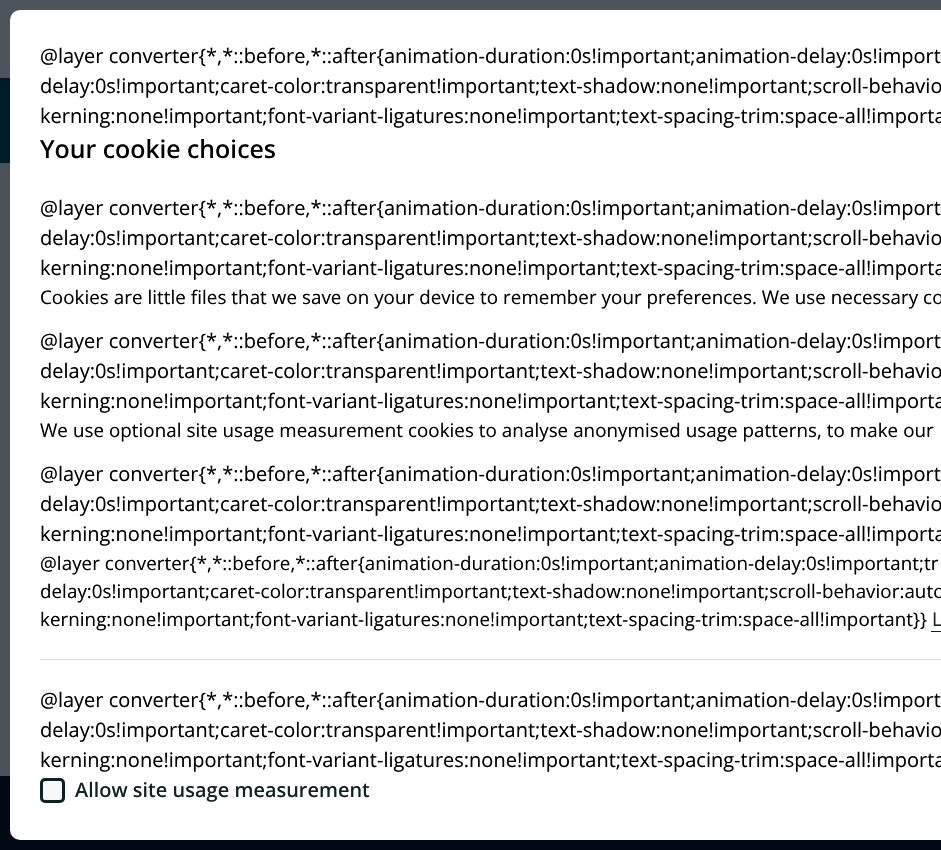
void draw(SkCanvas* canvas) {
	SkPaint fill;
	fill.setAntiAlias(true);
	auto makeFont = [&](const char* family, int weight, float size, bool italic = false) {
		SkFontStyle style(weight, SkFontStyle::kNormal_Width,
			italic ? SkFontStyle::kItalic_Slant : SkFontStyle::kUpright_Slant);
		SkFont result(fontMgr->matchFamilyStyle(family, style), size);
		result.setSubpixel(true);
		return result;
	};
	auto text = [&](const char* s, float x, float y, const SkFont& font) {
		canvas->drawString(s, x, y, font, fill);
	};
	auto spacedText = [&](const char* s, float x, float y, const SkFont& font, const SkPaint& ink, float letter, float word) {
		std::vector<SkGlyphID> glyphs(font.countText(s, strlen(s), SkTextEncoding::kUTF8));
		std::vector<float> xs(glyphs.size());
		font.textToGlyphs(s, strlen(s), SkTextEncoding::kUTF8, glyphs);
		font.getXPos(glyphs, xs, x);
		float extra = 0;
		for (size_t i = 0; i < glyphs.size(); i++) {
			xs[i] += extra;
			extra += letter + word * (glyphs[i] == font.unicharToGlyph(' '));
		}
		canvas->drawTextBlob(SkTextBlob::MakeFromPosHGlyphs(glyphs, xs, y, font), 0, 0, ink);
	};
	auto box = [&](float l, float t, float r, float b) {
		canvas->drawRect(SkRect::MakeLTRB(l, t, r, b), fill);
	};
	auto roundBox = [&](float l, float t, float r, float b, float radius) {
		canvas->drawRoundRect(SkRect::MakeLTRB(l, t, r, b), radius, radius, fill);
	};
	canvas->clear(0xFF4B5158);
	fill.setColor(0xFF4D545B);
	box(0, 0, 941, 78);
	fill.setColor(0xFF021C27);
	box(0, 78, 10, 163);
	fill.setColor(0xFF010A14);
	box(0, 776, 941, 850);
	fill.setColor(0xFFFFFFFF);
	roundBox(10, 10, 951, 840, 10);
	fill.setColor(0xFF0F2125);
	box(931, 631, 941, 632);
	fill.setColor(0xFFD9E3E5);
	box(40, 659, 941, 660);
	fill.setColor(0xFFF7F8F7);
	canvas->drawRoundRect(SkRect::MakeLTRB(41.5f, 779.5f, 63.5f, 801.5f), 3.5f, 3.5f, fill);
	fill.setStyle(SkPaint::kStroke_Style);
	fill.setStrokeWidth(3);
	fill.setColor(0xFF0F2125);
	canvas->drawRoundRect(SkRect::MakeLTRB(41.5f, 779.5f, 63.5f, 801.5f), 3.5f, 3.5f, fill);
	auto font1 = makeFont("Open Sans", 400, 20);
	fill.setStyle(SkPaint::kFill_Style);
	fill.setColor(0xFF000000);
	text("@layer converter{*,*::before,*::after{animation-duration:0s!important;animation-delay:0s!import", 40, 63, font1);
	text("delay:0s!important;caret-color:transparent!important;text-shadow:none!important;scroll-behavio", 40, 93, font1);
	text("kerning:none!important;font-variant-ligatures:none!important;text-spacing-trim:space-all!importa", 40, 123, font1);
	auto font2 = makeFont("Open Sans", 500, 25);
	text("Your cookie choices", 40, 158, font2);
	text("@layer converter{*,*::before,*::after{animation-duration:0s!important;animation-delay:0s!import", 40, 215, font1);
	text("delay:0s!important;caret-color:transparent!important;text-shadow:none!important;scroll-behavio", 40, 245, font1);
	text("kerning:none!important;font-variant-ligatures:none!important;text-spacing-trim:space-all!importa", 40, 275, font1);
	auto font3 = makeFont("Open Sans", 400, 18.75f);
	spacedText("Cookies are little files that we save on your device to remember your preferences. We use necessary co", 40, 304, font3, fill, 0.06f, 0);
	text("@layer converter{*,*::before,*::after{animation-duration:0s!important;animation-delay:0s!import", 40, 348, font1);
	text("delay:0s!important;caret-color:transparent!important;text-shadow:none!important;scroll-behavio", 40, 378, font1);
	text("kerning:none!important;font-variant-ligatures:none!important;text-spacing-trim:space-all!importa", 40, 408, font1);
	spacedText("We use optional site usage measurement cookies to analyse anonymised usage patterns, to make our", 40, 437, font3, fill, 0.06f, 0);
	text("@layer converter{*,*::before,*::after{animation-duration:0s!important;animation-delay:0s!import", 40, 481, font1);
	text("delay:0s!important;caret-color:transparent!important;text-shadow:none!important;scroll-behavio", 40, 511, font1);
	text("kerning:none!important;font-variant-ligatures:none!important;text-spacing-trim:space-all!importa", 40, 541, font1);
	spacedText("@layer converter{*,*::before,*::after{animation-duration:0s!important;animation-delay:0s!important;tr", 40, 570, font3, fill, 0.06f, 0);
	spacedText("delay:0s!important;caret-color:transparent!important;text-shadow:none!important;scroll-behavior:auto", 40, 598, font3, fill, 0.06f, 0);
	spacedText("kerning:none!important;font-variant-ligatures:none!important;text-spacing-trim:space-all!important}}", 40, 626, font3, fill, 0.06f, 0);
	fill.setColor(0xFF0F2125);
	spacedText("L", 932, 626, font3, fill, 0.06f, 0);
	fill.setColor(0xFF000000);
	text("@layer converter{*,*::before,*::after{animation-duration:0s!important;animation-delay:0s!import", 40, 707, font1);
	text("delay:0s!important;caret-color:transparent!important;text-shadow:none!important;scroll-behavio", 40, 737, font1);
	text("kerning:none!important;font-variant-ligatures:none!important;text-spacing-trim:space-all!importa", 40, 767, font1);
	auto font4 = makeFont("Open Sans", 500, 20);
	fill.setColor(0xFF0F2125);
	spacedText("Allow site usage measurement", 75, 797, font4, fill, 0.06f, 0);
}
